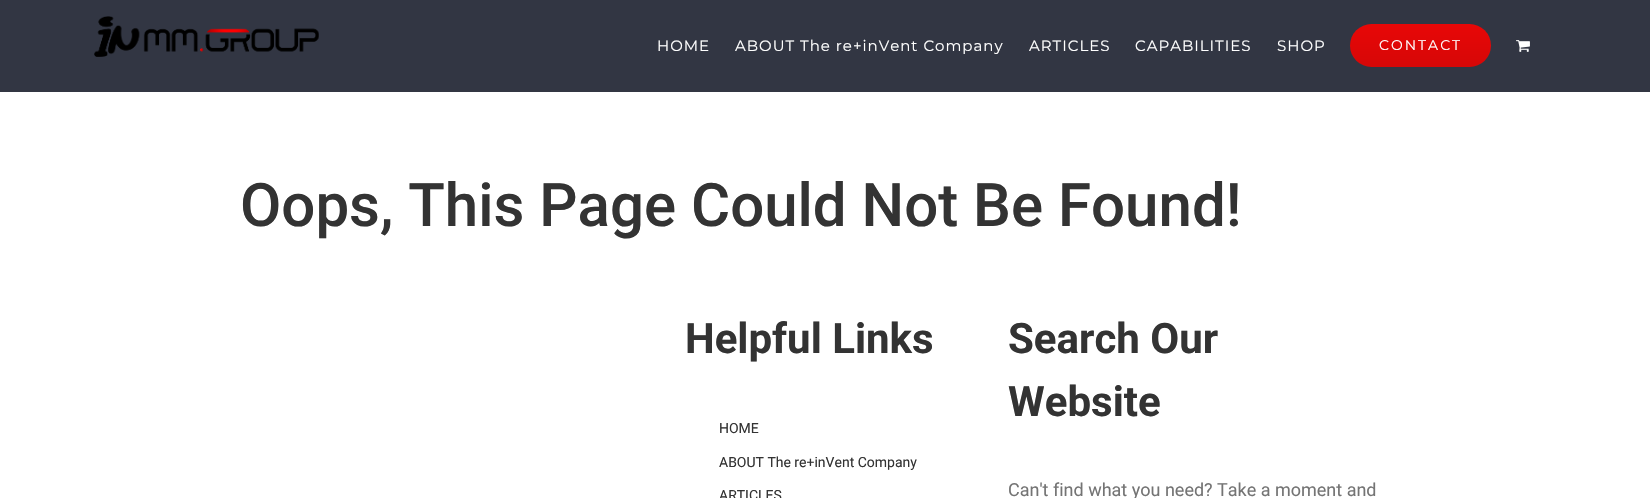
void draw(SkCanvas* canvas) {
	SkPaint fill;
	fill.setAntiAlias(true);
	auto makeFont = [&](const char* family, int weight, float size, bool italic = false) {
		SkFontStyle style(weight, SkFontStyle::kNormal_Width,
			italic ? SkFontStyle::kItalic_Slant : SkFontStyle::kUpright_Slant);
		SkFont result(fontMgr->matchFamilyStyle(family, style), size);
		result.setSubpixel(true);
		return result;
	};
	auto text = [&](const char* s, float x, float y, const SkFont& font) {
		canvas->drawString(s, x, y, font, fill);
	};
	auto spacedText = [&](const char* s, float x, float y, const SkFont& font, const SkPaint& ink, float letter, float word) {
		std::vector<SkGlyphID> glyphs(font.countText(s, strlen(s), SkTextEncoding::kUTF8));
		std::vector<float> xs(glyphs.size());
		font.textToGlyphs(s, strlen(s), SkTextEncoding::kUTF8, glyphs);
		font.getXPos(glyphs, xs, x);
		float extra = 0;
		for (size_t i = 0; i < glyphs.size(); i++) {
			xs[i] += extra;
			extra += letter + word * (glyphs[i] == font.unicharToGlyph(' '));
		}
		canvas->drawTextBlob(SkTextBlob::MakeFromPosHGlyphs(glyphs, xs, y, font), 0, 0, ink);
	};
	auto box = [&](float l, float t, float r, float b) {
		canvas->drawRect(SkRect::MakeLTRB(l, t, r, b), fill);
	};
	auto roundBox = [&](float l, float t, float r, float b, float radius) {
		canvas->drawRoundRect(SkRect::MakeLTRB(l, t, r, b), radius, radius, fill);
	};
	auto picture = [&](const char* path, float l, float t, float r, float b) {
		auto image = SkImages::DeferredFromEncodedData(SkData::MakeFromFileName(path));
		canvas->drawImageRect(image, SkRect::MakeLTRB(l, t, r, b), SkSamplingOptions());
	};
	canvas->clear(0xFFFFFFFF);
	fill.setColor(0xFF323643);
	box(0, 0, 1650, 92);
	picture("image0.png", 94, 16, 319, 57);
	{
		const SkColor colors[] = {0xFFE80707, 0xFFD60707};
		const float stops[] = {0, 1};
		const SkPoint ends[] = {{1421, 24}, {1421, 67}};
		fill.setShader(SkGradientShader::MakeLinear(ends, colors, stops, 2, SkTileMode::kClamp));
		fill.setAlpha(255);
	}
	roundBox(1350, 24, 1491, 67, 21.5f);
	picture("image1.png", 1516, 40, 1530, 52);
	auto font1 = makeFont("Montserrat", 400, 15);
	fill.setShader(nullptr);
	fill.setColor(0xFFFFFFFF);
	spacedText("HOME", 657, 51, font1, fill, 1, 0);
	spacedText("ABOUT The re+inVent Company", 735, 51, font1, fill, 1, 0);
	spacedText("ARTICLES", 1029, 51, font1, fill, 1, 0);
	spacedText("CAPABILITIES", 1135, 51, font1, fill, 1, 0);
	spacedText("SHOP", 1277, 51, font1, fill, 1, 0);
	auto font2 = makeFont("Montserrat", 400, 14);
	spacedText("CONTACT", 1379, 50, font2, fill, 2, 0);
	auto font3 = makeFont("Roboto", 500, 60);
	fill.setColor(0xFF333333);
	text("Oops, This Page Could Not Be Found!", 240, 226, font3);
	auto font4 = makeFont("Roboto", 700, 42);
	text("Helpful Links", 685, 353, font4);
	auto font5 = makeFont("Roboto", 400, 14);
	text("HOME", 719, 433, font5);
	text("ABOUT The re+inVent Company", 719, 467, font5);
	text("ARTICLES", 719, 500, font5);
	text("Search Our", 1008, 353, font4);
	text("Website", 1008, 416, font4);
	auto font6 = makeFont("Roboto", 400, 18);
	fill.setColor(0xFF747474);
	text("Can't find what you need? Take a moment and", 1008, 496, font6);
}
